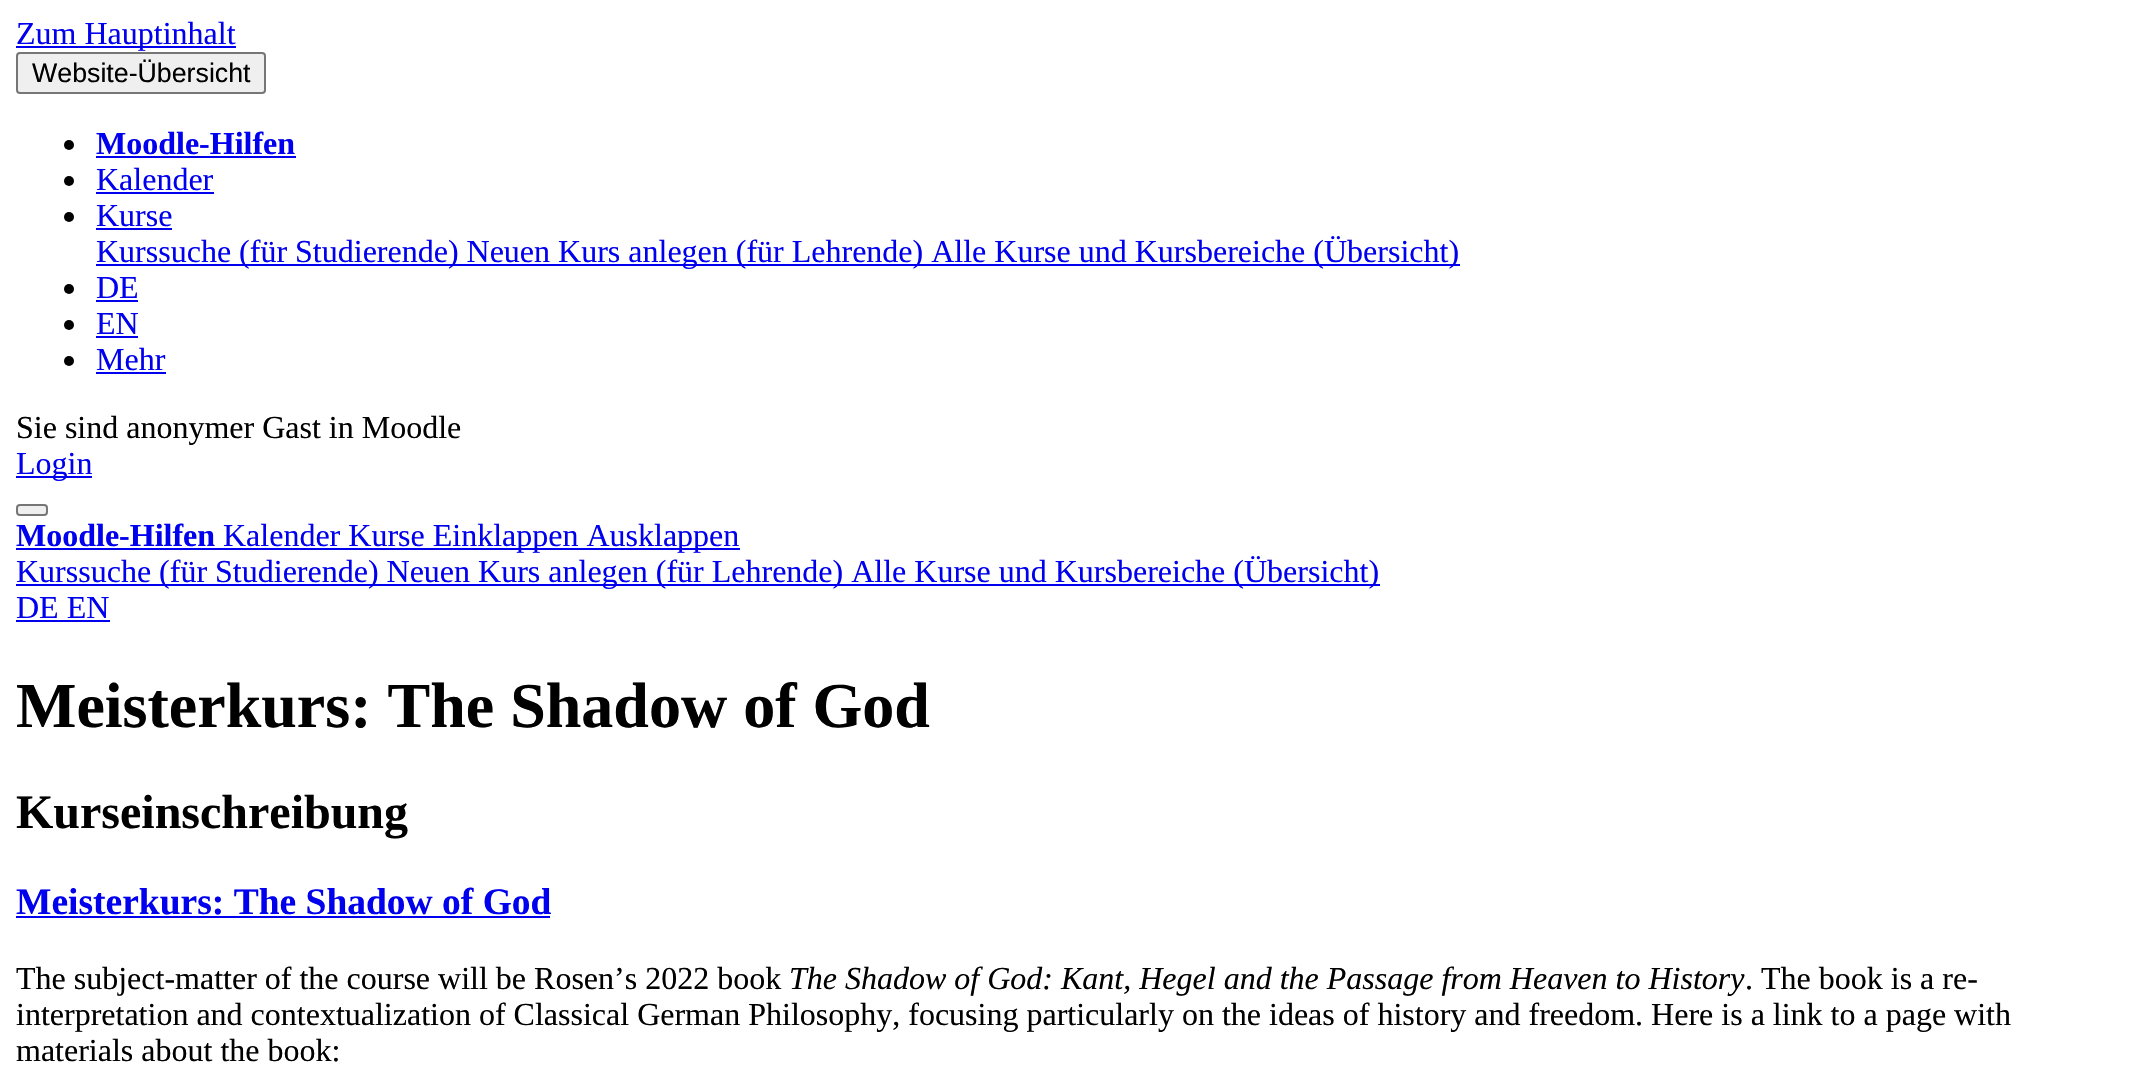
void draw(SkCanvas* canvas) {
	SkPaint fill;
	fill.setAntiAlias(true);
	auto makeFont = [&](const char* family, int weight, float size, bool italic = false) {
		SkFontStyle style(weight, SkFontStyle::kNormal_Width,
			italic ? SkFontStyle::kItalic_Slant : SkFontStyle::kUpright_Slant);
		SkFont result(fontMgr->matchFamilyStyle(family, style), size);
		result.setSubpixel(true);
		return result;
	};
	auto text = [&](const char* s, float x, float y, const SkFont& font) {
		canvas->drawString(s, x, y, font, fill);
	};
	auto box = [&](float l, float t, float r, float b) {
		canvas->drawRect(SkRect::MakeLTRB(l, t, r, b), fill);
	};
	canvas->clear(0xFFFFFFFF);
	fill.setColor(0xFF0000EE);
	box(16, 46, 236, 48);
	fill.setColor(0xFFEFEFEF);
	canvas->drawRoundRect(SkRect::MakeLTRB(17, 53, 265, 93), 3, 3, fill);
	fill.setStyle(SkPaint::kStroke_Style);
	fill.setStrokeWidth(2);
	fill.setColor(0xFF767676);
	canvas->drawRoundRect(SkRect::MakeLTRB(17, 53, 265, 93), 3, 3, fill);
	fill.setStyle(SkPaint::kFill_Style);
	fill.setColor(0xFF000000);
	canvas->drawCircle(69, 145, 5, fill);
	fill.setColor(0xFF0000EE);
	box(96, 156, 296, 158);
	fill.setColor(0xFF000000);
	canvas->drawCircle(69, 181, 5, fill);
	fill.setColor(0xFF0000EE);
	box(96, 192, 214, 194);
	fill.setColor(0xFF000000);
	canvas->drawCircle(69, 217, 5, fill);
	fill.setColor(0xFF0000EE);
	box(96, 228, 172, 230);
	box(96, 264, 1460, 266);
	fill.setColor(0xFF000000);
	canvas->drawCircle(69, 289, 5, fill);
	fill.setColor(0xFF0000EE);
	box(96, 300, 138, 302);
	fill.setColor(0xFF000000);
	canvas->drawCircle(69, 325, 5, fill);
	fill.setColor(0xFF0000EE);
	box(96, 336, 138, 338);
	fill.setColor(0xFF000000);
	canvas->drawCircle(69, 361, 5, fill);
	fill.setColor(0xFF0000EE);
	box(96, 372, 166, 374);
	box(16, 476, 92, 478);
	fill.setColor(0xFFEFEFEF);
	canvas->drawRoundRect(SkRect::MakeLTRB(17, 505, 47, 515), 3, 3, fill);
	fill.setStyle(SkPaint::kStroke_Style);
	fill.setColor(0xFF767676);
	canvas->drawRoundRect(SkRect::MakeLTRB(17, 505, 47, 515), 3, 3, fill);
	fill.setStyle(SkPaint::kFill_Style);
	fill.setColor(0xFF0000EE);
	box(16, 548, 740, 550);
	box(16, 584, 1380, 586);
	box(16, 620, 110, 622);
	box(16, 916, 550, 918);
	auto font1 = makeFont("Liberation Serif", 400, 32);
	text("Zum Hauptinhalt", 16, 44, font1);
	auto font2 = makeFont("Liberation Sans", 400, 26.75f);
	fill.setColor(0xFF000000);
	text("Website-Übersicht", 32, 82, font2);
	auto font3 = makeFont("Liberation Serif", 700, 32);
	fill.setColor(0xFF0000EE);
	text("Moodle-Hilfen", 96, 154, font3);
	text("Kalender", 96, 190, font1);
	text("Kurse", 96, 226, font1);
	text("Kurssuche (für Studierende) Neuen Kurs anlegen (für Lehrende) Alle Kurse und Kursbereiche (Übersicht)", 96, 262, font1);
	text("DE", 96, 298, font1);
	text("EN", 96, 334, font1);
	text("Mehr", 96, 370, font1);
	fill.setColor(0xFF000000);
	text("Sie sind anonymer Gast in Moodle", 16, 438, font1);
	fill.setColor(0xFF0000EE);
	text("Login", 16, 474, font1);
	text("Moodle-Hilfen", 16, 546, font3);
	text("Kalender Kurse Einklappen Ausklappen", 223, 546, font1);
	text("Kurssuche (für Studierende) Neuen Kurs anlegen (für Lehrende) Alle Kurse und Kursbereiche (Übersicht)", 16, 582, font1);
	text("DE EN", 16, 618, font1);
	auto font4 = makeFont("Liberation Serif", 700, 64);
	fill.setColor(0xFF000000);
	text("Meisterkurs: The Shadow of God", 16, 727, font4);
	auto font5 = makeFont("Liberation Serif", 700, 48);
	text("Kurseinschreibung", 16, 828, font5);
	auto font6 = makeFont("Liberation Serif", 700, 37.5f);
	fill.setColor(0xFF0000EE);
	text("Meisterkurs: The Shadow of God", 16, 914, font6);
	fill.setColor(0xFF000000);
	text("The subject-matter of the course will be Rosen’s 2022 book", 16, 989, font1);
	auto font7 = makeFont("Liberation Serif", 400, 32, true);
	text("The Shadow of God: Kant, Hegel and the Passage from Heaven to History", 789, 989, font7);
	text(". The book is a re-", 1745, 989, font1);
	text("interpretation and contextualization of Classical German Philosophy, focusing particularly on the ideas of history and freedom. Here is a link to a page with", 16, 1025, font1);
	text("materials about the book:", 16, 1061, font1);
}
